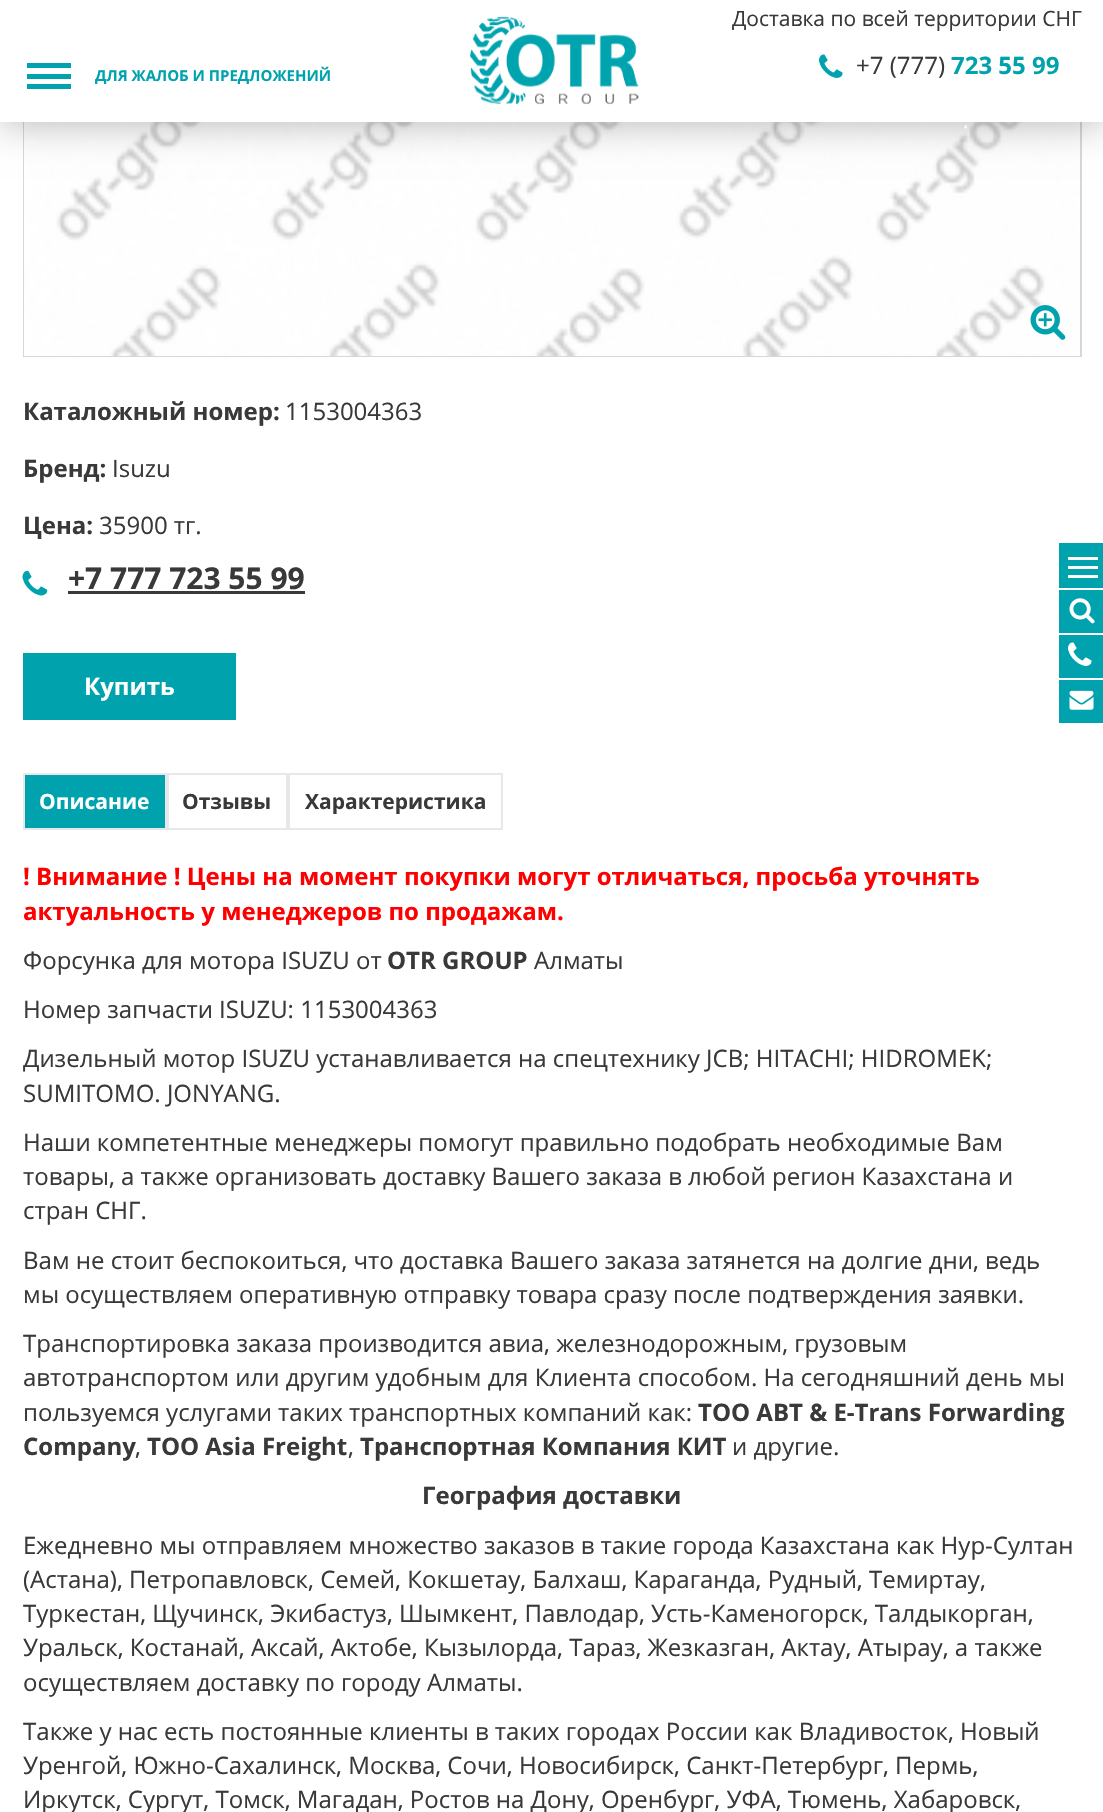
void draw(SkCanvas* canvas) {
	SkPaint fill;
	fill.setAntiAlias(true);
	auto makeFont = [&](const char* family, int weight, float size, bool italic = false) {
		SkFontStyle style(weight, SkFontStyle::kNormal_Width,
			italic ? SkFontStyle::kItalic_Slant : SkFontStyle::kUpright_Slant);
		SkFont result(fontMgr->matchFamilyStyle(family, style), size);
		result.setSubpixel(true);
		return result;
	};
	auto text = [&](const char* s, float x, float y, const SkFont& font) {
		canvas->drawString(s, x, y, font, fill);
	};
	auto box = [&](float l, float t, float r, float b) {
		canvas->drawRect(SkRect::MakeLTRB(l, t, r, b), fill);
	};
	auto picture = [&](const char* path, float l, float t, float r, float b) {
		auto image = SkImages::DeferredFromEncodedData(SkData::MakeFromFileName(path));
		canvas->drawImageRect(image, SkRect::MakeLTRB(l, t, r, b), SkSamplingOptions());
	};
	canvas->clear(0xFFFFFFFF);
	fill.setStyle(SkPaint::kStroke_Style);
	fill.setStrokeWidth(2);
	fill.setColor(0xFFD7D7D7);
	canvas->drawRect(SkRect::MakeLTRB(24, -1, 1081, 356), fill);
	picture("image2.png", 24, 122, 1080, 356);
	fill.setStyle(SkPaint::kFill_Style);
	fill.setColor(0x4D000000);
	fill.setMaskFilter(SkMaskFilter::MakeBlur(kNormal_SkBlurStyle, 19));
	canvas->drawRect(SkRect::MakeLTRB(0, 0, 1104, 122), fill);
	fill.setMaskFilter(nullptr);
	fill.setColor(0xFFFFFFFF);
	box(0, 0, 1103, 122);
	picture("image0.png", 470, 16, 639, 105);
	fill.setColor(0xFF00A3AD);
	box(27, 63, 71, 68);
	box(27, 74, 71, 79);
	box(27, 84, 71, 89);
	picture("image1.png", 819, 54, 843, 78);
	picture("image3.png", 1030, 305, 1066, 340);
	picture("image4.png", 22, 570, 48, 596);
	fill.setColor(0xFF393939);
	box(68, 591, 305, 594);
	fill.setColor(0xFF00A3AD);
	box(23, 653, 236, 720);
	canvas->drawRect(SkRect::MakeLTRB(24, 774, 166, 829), fill);
	fill.setStyle(SkPaint::kStroke_Style);
	fill.setColor(0xFFE8E8E8);
	canvas->drawRect(SkRect::MakeLTRB(24, 774, 166, 829), fill);
	canvas->drawRect(SkRect::MakeLTRB(168, 774, 287, 829), fill);
	canvas->drawRect(SkRect::MakeLTRB(289, 774, 502, 829), fill);
	fill.setStyle(SkPaint::kFill_Style);
	fill.setColor(0xFF00A3AD);
	box(1059, 543, 1103, 588);
	fill.setColor(0xFFFFFFFF);
	box(1068, 557, 1098, 560);
	box(1068, 566, 1098, 569);
	box(1068, 575, 1098, 578);
	fill.setColor(0xFF00A3AD);
	box(1059, 590, 1103, 633);
	picture("image5.png", 1069, 598, 1095, 624);
	box(1059, 635, 1103, 678);
	picture("image6.png", 1068, 642, 1092, 666);
	box(1059, 680, 1103, 723);
	picture("image7.png", 1069, 690, 1094, 710);
	auto font1 = makeFont("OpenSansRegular", 400, 21);
	fill.setColor(0xFF393939);
	text("Доставка по всей территории СНГ", 732, 26, font1);
	auto font2 = makeFont("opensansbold", 700, 15);
	fill.setColor(0xFF00A3AD);
	text("ДЛЯ ЖАЛОБ И ПРЕДЛОЖЕНИЙ", 95, 81, font2);
	auto font3 = makeFont("OpenSansRegular", 400, 24);
	fill.setColor(0xFF393939);
	text("+7 (777)", 856, 74, font3);
	auto font4 = makeFont("opensansbold", 700, 24);
	fill.setColor(0xFF00A3AD);
	text("723 55 99", 951, 74, font4);
	fill.setColor(0xFFFFFFFF);
	text(".", 963, 128, font1);
	fill.setColor(0xFF393939);
	text("Каталожный номер:", 23, 420, font4);
	text("1153004363", 285, 420, font3);
	text("Бренд:", 23, 477, font4);
	text("Isuzu", 112, 477, font3);
	text("Цена:", 23, 534, font4);
	text("35900 тг.", 99, 534, font3);
	auto font5 = makeFont("opensansbold", 700, 30);
	text("+7 777 723 55 99", 68, 589, font5);
	fill.setColor(0xFFFFFFFF);
	text("Купить", 84, 695, font4);
	auto font6 = makeFont("opensansbold", 700, 21);
	text("Описание", 39, 809, font6);
	fill.setColor(0xFF393939);
	text("Отзывы", 182, 809, font6);
	text("Характеристика", 305, 809, font6);
	fill.setColor(0xFFFF0000);
	text("! Внимание ! Цены на момент покупки могут отличаться, просьба уточнять", 23, 885, font4);
	text("актуальность у менеджеров по продажам.", 23, 920, font4);
	fill.setColor(0xFF393939);
	text("Форсунка для мотора ISUZU от", 23, 969, font3);
	text("OTR GROUP", 387, 969, font4);
	text("Алматы", 534, 969, font3);
	text("Номер запчасти ISUZU: 1153004363", 23, 1018, font3);
	text("Дизельный мотор ISUZU устанавливается на спецтехнику JCB; HITACHI; HIDROMEK;", 23, 1067, font3);
	text("SUMITOMO. JONYANG.", 23, 1102, font3);
	text("Наши компетентные менеджеры помогут правильно подобрать необходимые Вам", 23, 1151, font3);
	text("товары, а также организовать доставку Вашего заказа в любой регион Казахстана и", 23, 1185, font3);
	text("стран СНГ.", 23, 1219, font3);
	text("Вам не стоит беспокоиться, что доставка Вашего заказа затянется на долгие дни, ведь", 23, 1269, font3);
	text("мы осуществляем оперативную отправку товара сразу после подтверждения заявки.", 23, 1303, font3);
	text("Транспортировка заказа производится авиа, железнодорожным, грузовым", 23, 1352, font3);
	text("автотранспортом или другим удобным для Клиента способом. На сегодняшний день мы", 23, 1386, font3);
	text("пользуемся услугами таких транспортных компаний как:", 23, 1421, font3);
	text("ТОО ABT & E-Trans Forwarding", 698, 1421, font4);
	text("Company", 23, 1455, font4);
	text(",", 135, 1455, font3);
	text("ТОО Asia Freight", 147, 1455, font4);
	text(",", 348, 1455, font3);
	text("Транспортная Компания КИТ", 360, 1455, font4);
	text("и другие.", 732, 1455, font3);
	text("География доставки", 422, 1504, font4);
	text("Ежедневно мы отправляем множество заказов в такие города Казахстана как Нур-Султан", 23, 1554, font3);
	text("(Астана), Петропавловск, Семей, Кокшетау, Балхаш, Караганда, Рудный, Темиртау,", 23, 1588, font3);
	text("Туркестан, Щучинск, Экибастуз, Шымкент, Павлодар, Усть-Каменогорск, Талдыкорган,", 23, 1622, font3);
	text("Уральск, Костанай, Аксай, Актобе, Кызылорда, Тараз, Жезказган, Актау, Атырау, а также", 23, 1656, font3);
	text("осуществляем доставку по городу Алматы.", 23, 1691, font3);
	text("Также у нас есть постоянные клиенты в таких городах России как Владивосток, Новый", 23, 1740, font3);
	text("Уренгой, Южно-Сахалинск, Москва, Сочи, Новосибирск, Санкт-Петербург, Пермь,", 23, 1774, font3);
	text("Иркутск, Сургут, Томск, Магадан, Ростов на Дону, Оренбург, УФА, Тюмень, Хабаровск,", 23, 1808, font3);
}
